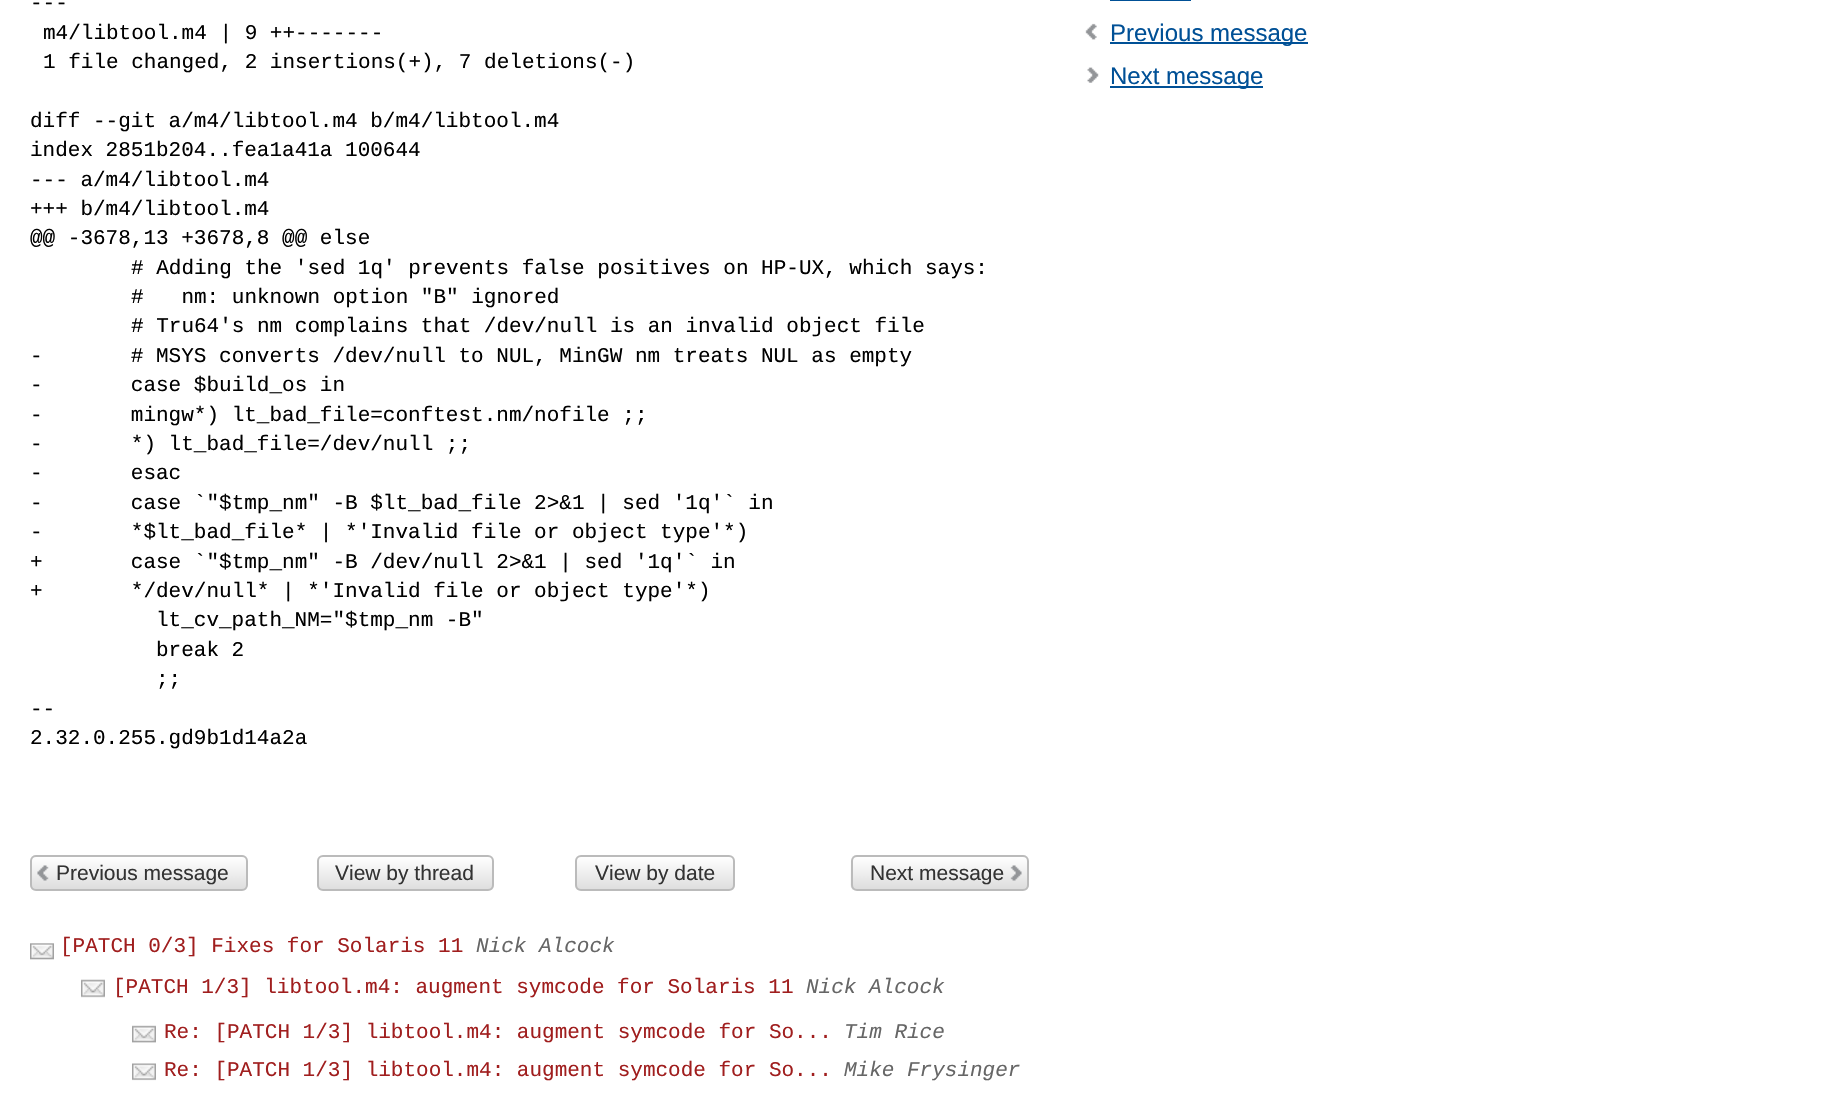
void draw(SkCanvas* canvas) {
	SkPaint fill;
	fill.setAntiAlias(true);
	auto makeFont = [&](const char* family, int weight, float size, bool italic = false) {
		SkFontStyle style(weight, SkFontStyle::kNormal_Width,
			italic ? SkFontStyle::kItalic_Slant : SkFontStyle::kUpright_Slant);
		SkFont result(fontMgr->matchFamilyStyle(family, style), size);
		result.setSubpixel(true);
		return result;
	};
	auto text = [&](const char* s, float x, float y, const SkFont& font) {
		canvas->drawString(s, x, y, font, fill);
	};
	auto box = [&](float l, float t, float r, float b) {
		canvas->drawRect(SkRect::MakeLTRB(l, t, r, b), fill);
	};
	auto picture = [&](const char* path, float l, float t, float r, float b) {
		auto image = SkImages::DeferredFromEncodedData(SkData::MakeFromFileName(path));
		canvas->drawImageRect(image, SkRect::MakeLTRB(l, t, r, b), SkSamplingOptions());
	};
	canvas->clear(0xFFFFFFFF);
	picture("image0.png", 30, 855, 247, 891);
	fill.setStyle(SkPaint::kStroke_Style);
	fill.setStrokeWidth(2);
	fill.setColor(0xFFBBBBBB);
	canvas->drawRoundRect(SkRect::MakeLTRB(31, 856, 247, 890), 5, 5, fill);
	canvas->save();
	canvas->clipPath(SkPathBuilder().moveTo(323, 855).lineTo(488, 855).cubicTo(491.5f, 855, 494, 857.5f, 494, 861).lineTo(494, 885).cubicTo(494, 888.5f, 491.5f, 891, 488, 891).lineTo(323, 891).cubicTo(319.5f, 891, 317, 888.5f, 317, 885).lineTo(317, 861).cubicTo(317, 857.5f, 319.5f, 855, 323, 855).close().detach(), true);
	fill.setStyle(SkPaint::kFill_Style);
	{
		const SkColor colors[] = {0xFFFFFFFF, 0xFFDDDDDD};
		const float stops[] = {0, 1};
		const SkPoint ends[] = {{405, 857}, {405, 890}};
		fill.setShader(SkGradientShader::MakeLinear(ends, colors, stops, 2, SkTileMode::kClamp));
		fill.setAlpha(255);
	}
	box(317, 857, 494, 890);
	canvas->restore();
	fill.setStyle(SkPaint::kStroke_Style);
	fill.setShader(nullptr);
	fill.setColor(0xFFBBBBBB);
	canvas->drawRoundRect(SkRect::MakeLTRB(318, 856, 493, 890), 5, 5, fill);
	canvas->save();
	canvas->clipPath(SkPathBuilder().moveTo(581, 855).lineTo(729, 855).cubicTo(732.5f, 855, 735, 857.5f, 735, 861).lineTo(735, 885).cubicTo(735, 888.5f, 732.5f, 891, 729, 891).lineTo(581, 891).cubicTo(577.5f, 891, 575, 888.5f, 575, 885).lineTo(575, 861).cubicTo(575, 857.5f, 577.5f, 855, 581, 855).close().detach(), true);
	fill.setStyle(SkPaint::kFill_Style);
	{
		const SkColor colors[] = {0xFFFFFFFF, 0xFFDDDDDD};
		const float stops[] = {0, 1};
		const SkPoint ends[] = {{655, 857}, {655, 890}};
		fill.setShader(SkGradientShader::MakeLinear(ends, colors, stops, 2, SkTileMode::kClamp));
		fill.setAlpha(255);
	}
	box(575, 857, 735, 890);
	canvas->restore();
	fill.setStyle(SkPaint::kStroke_Style);
	fill.setShader(nullptr);
	fill.setColor(0xFFBBBBBB);
	canvas->drawRoundRect(SkRect::MakeLTRB(576, 856, 734, 890), 5, 5, fill);
	picture("image1.png", 850, 855, 1029, 891);
	canvas->drawRoundRect(SkRect::MakeLTRB(852, 856, 1028, 890), 5, 5, fill);
	picture("image2.png", 30, 943, 54, 960);
	picture("image3.png", 81, 979, 105, 998);
	picture("image4.png", 132, 1025, 156, 1043);
	picture("image5.png", 132, 1063, 156, 1081);
	fill.setStyle(SkPaint::kFill_Style);
	fill.setColor(0xFF005096);
	box(1110, 0, 1191, 1);
	picture("image6.png", 1085, 23, 1097, 40);
	box(1110, 42, 1308, 44);
	picture("image7.png", 1087, 67, 1099, 83);
	box(1110, 86, 1263, 88);
	auto font1 = makeFont("Liberation Mono", 400, 21);
	fill.setColor(0xFF000000);
	text("---", 30, 9, font1);
	text("m4/libtool.m4 | 9 ++-------", 43, 39, font1);
	text("1 file changed, 2 insertions(+), 7 deletions(-)", 43, 68, font1);
	text("diff --git a/m4/libtool.m4 b/m4/libtool.m4", 30, 127, font1);
	text("index 2851b204..fea1a41a 100644", 30, 156, font1);
	text("--- a/m4/libtool.m4", 30, 186, font1);
	text("+++ b/m4/libtool.m4", 30, 215, font1);
	text("@@ -3678,13 +3678,8 @@ else", 30, 244, font1);
	text("# Adding the 'sed 1q' prevents false positives on HP-UX, which says:", 131, 274, font1);
	text("#   nm: unknown option \"B\" ignored", 131, 303, font1);
	text("# Tru64's nm complains that /dev/null is an invalid object file", 131, 332, font1);
	text("-       # MSYS converts /dev/null to NUL, MinGW nm treats NUL as empty", 30, 362, font1);
	text("-       case $build_os in", 30, 391, font1);
	text("-       mingw*) lt_bad_file=conftest.nm/nofile ;;", 30, 421, font1);
	text("-       *) lt_bad_file=/dev/null ;;", 30, 450, font1);
	text("-       esac", 30, 479, font1);
	text("-       case `\"$tmp_nm\" -B $lt_bad_file 2>&1 | sed '1q'` in", 30, 509, font1);
	text("-       *$lt_bad_file* | *'Invalid file or object type'*)", 30, 538, font1);
	text("+       case `\"$tmp_nm\" -B /dev/null 2>&1 | sed '1q'` in", 30, 568, font1);
	text("+       */dev/null* | *'Invalid file or object type'*)", 30, 597, font1);
	text("lt_cv_path_NM=\"$tmp_nm -B\"", 156, 626, font1);
	text("break 2", 156, 656, font1);
	text(";;", 156, 685, font1);
	text("--", 30, 715, font1);
	text("2.32.0.255.gd9b1d14a2a", 30, 744, font1);
	auto font2 = makeFont("Liberation Sans", 400, 21);
	fill.setColor(0xFF333333);
	text("Previous message", 56, 880, font2);
	text("View by thread", 335, 880, font2);
	text("View by date", 595, 880, font2);
	text("Next message", 870, 880, font2);
	fill.setColor(0xFFA01E1E);
	text("[PATCH 0/3] Fixes for Solaris 11", 60, 952, font1);
	auto font3 = makeFont("Liberation Mono", 400, 21, true);
	fill.setColor(0xFF666666);
	text("Nick Alcock", 476, 952, font3);
	fill.setColor(0xFFA01E1E);
	text("[PATCH 1/3] libtool.m4: augment symcode for Solaris 11", 113, 993, font1);
	fill.setColor(0xFF666666);
	text("Nick Alcock", 806, 993, font3);
	fill.setColor(0xFFA01E1E);
	text("Re: [PATCH 1/3] libtool.m4: augment symcode for So...", 164, 1038, font1);
	fill.setColor(0xFF666666);
	text("Tim Rice", 844, 1038, font3);
	fill.setColor(0xFFA01E1E);
	text("Re: [PATCH 1/3] libtool.m4: augment symcode for So...", 164, 1076, font1);
	fill.setColor(0xFF666666);
	text("Mike Frysinger", 844, 1076, font3);
	auto font4 = makeFont("Liberation Sans", 400, 24);
	fill.setColor(0xFF005096);
	text("Previous message", 1110, 41, font4);
	text("Next message", 1110, 84, font4);
}
